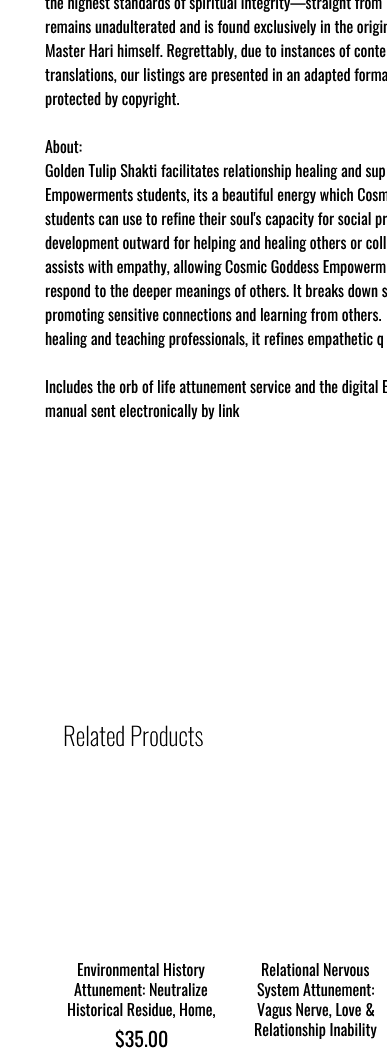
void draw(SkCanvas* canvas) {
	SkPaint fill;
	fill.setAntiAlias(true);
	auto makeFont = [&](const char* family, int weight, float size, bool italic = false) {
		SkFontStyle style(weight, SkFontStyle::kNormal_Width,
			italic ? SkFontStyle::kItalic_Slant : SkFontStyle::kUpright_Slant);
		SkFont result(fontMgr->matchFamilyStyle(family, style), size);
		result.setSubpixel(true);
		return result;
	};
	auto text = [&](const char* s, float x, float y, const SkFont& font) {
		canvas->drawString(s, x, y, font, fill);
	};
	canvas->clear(0xFFFFFFFF);
	auto font1 = makeFont("Oswald", 400, 16);
	fill.setColor(0xFF000000);
	text("the highest standards of spiritual integrity—straight from", 45, 9, font1);
	text("remains unadulterated and is found exclusively in the origin", 45, 33, font1);
	text("Master Hari himself. Regrettably, due to instances of conte", 45, 57, font1);
	text("translations, our listings are presented in an adapted forma", 45, 81, font1);
	text("protected by copyright.", 45, 105, font1);
	text("About:", 45, 153, font1);
	text("Golden Tulip Shakti facilitates relationship healing and sup", 45, 177, font1);
	text("Empowerments students, its a beautiful energy which Cosm", 45, 201, font1);
	text("students can use to refine their soul's capacity for social pr", 45, 225, font1);
	text("development outward for helping and healing others or coll", 45, 249, font1);
	text("assists with empathy, allowing Cosmic Goddess Empowerm", 45, 273, font1);
	text("respond to the deeper meanings of others. It breaks down s", 45, 297, font1);
	text("promoting sensitive connections and learning from others.", 45, 321, font1);
	text("healing and teaching professionals, it refines empathetic q", 45, 345, font1);
	text("Includes the orb of life attunement service and the digital E", 45, 393, font1);
	text("manual sent electronically by link", 45, 417, font1);
	auto font2 = makeFont("Oswald", 200, 25);
	text("Related Products", 63, 746, font2);
	text("Environmental History", 77, 976, font1);
	text("Attunement: Neutralize", 74, 996, font1);
	text("Historical Residue, Home,", 67, 1016, font1);
	auto font3 = makeFont("Oswald", 400, 20);
	text("$35.00", 115, 1047, font3);
	text("Relational Nervous", 261, 976, font1);
	text("System Attunement:", 257, 996, font1);
	text("Vagus Nerve, Love &", 257, 1016, font1);
	text("Relationship Inability", 254, 1036, font1);
}
